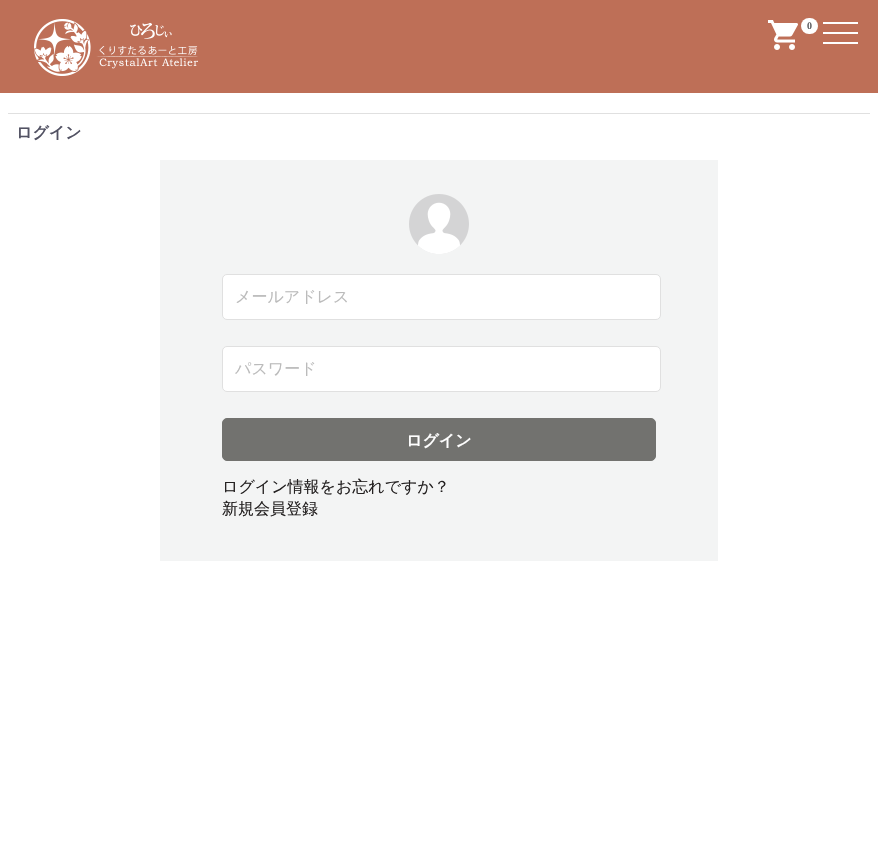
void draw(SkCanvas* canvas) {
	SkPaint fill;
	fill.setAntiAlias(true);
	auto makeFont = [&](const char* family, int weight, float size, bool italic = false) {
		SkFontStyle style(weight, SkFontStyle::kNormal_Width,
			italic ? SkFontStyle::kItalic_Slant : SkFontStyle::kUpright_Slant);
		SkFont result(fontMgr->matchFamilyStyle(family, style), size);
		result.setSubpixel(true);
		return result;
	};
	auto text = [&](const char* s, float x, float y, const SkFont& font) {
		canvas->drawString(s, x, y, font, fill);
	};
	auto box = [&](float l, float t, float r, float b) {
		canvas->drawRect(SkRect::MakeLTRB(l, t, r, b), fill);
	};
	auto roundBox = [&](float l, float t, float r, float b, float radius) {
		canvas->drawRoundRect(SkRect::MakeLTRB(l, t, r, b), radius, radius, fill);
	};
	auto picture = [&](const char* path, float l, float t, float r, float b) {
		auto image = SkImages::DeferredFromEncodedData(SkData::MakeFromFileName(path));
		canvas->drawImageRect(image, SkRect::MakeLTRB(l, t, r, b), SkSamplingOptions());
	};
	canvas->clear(0xFFFFFFFF);
	fill.setColor(0xFFBE6F57);
	box(0, 0, 878, 93);
	picture("image0.png", 34, 19, 198, 76);
	picture("image1.png", 768, 20, 798, 50);
	fill.setColor(0xFFFFFFFF);
	roundBox(801, 18, 818, 34, 8);
	box(823, 32, 858, 34);
	box(823, 22, 858, 24);
	box(823, 42, 858, 44);
	fill.setColor(0xFFE0E0E0);
	box(8, 113, 870, 114);
	fill.setColor(0xFFF3F4F4);
	box(160, 160, 718, 561);
	picture("image2.png", 409, 194, 469, 254);
	fill.setColor(0xFFFFFFFF);
	canvas->drawRoundRect(SkRect::MakeLTRB(222.5f, 274.5f, 660.5f, 319.5f), 4.5f, 4.5f, fill);
	fill.setStyle(SkPaint::kStroke_Style);
	fill.setStrokeWidth(1);
	fill.setColor(0xFFE0E0E0);
	canvas->drawRoundRect(SkRect::MakeLTRB(222.5f, 274.5f, 660.5f, 319.5f), 4.5f, 4.5f, fill);
	fill.setStyle(SkPaint::kFill_Style);
	fill.setColor(0xFFFFFFFF);
	canvas->drawRoundRect(SkRect::MakeLTRB(222.5f, 346.5f, 660.5f, 391.5f), 4.5f, 4.5f, fill);
	fill.setStyle(SkPaint::kStroke_Style);
	fill.setColor(0xFFE0E0E0);
	canvas->drawRoundRect(SkRect::MakeLTRB(222.5f, 346.5f, 660.5f, 391.5f), 4.5f, 4.5f, fill);
	fill.setStyle(SkPaint::kFill_Style);
	fill.setColor(0xFF72726F);
	canvas->drawRoundRect(SkRect::MakeLTRB(222.5f, 418.5f, 655.5f, 460.5f), 4.5f, 4.5f, fill);
	fill.setStyle(SkPaint::kStroke_Style);
	canvas->drawRoundRect(SkRect::MakeLTRB(222.5f, 418.5f, 655.5f, 460.5f), 4.5f, 4.5f, fill);
	auto font1 = makeFont("Liberation Serif", 700, 10);
	fill.setStyle(SkPaint::kFill_Style);
	fill.setColor(0xFF626265);
	text("0", 807, 29, font1);
	auto font2 = makeFont("WenQuanYi Zen Hei", 700, 16);
	fill.setColor(0xFF525263);
	text("ログイン", 16, 138, font2);
	auto font3 = makeFont("WenQuanYi Zen Hei", 500, 16);
	fill.setColor(0xFFBBBBBB);
	text("メールアドレス", 235, 302, font3);
	text("パスワード", 235, 374, font3);
	fill.setColor(0xFFFFFFFF);
	text("ログイン", 406, 446, font2);
	fill.setColor(0xFF242121);
	text("ログイン情報をお忘れですか？", 222, 492, font3);
	text("新規会員登録", 222, 514, font3);
}
